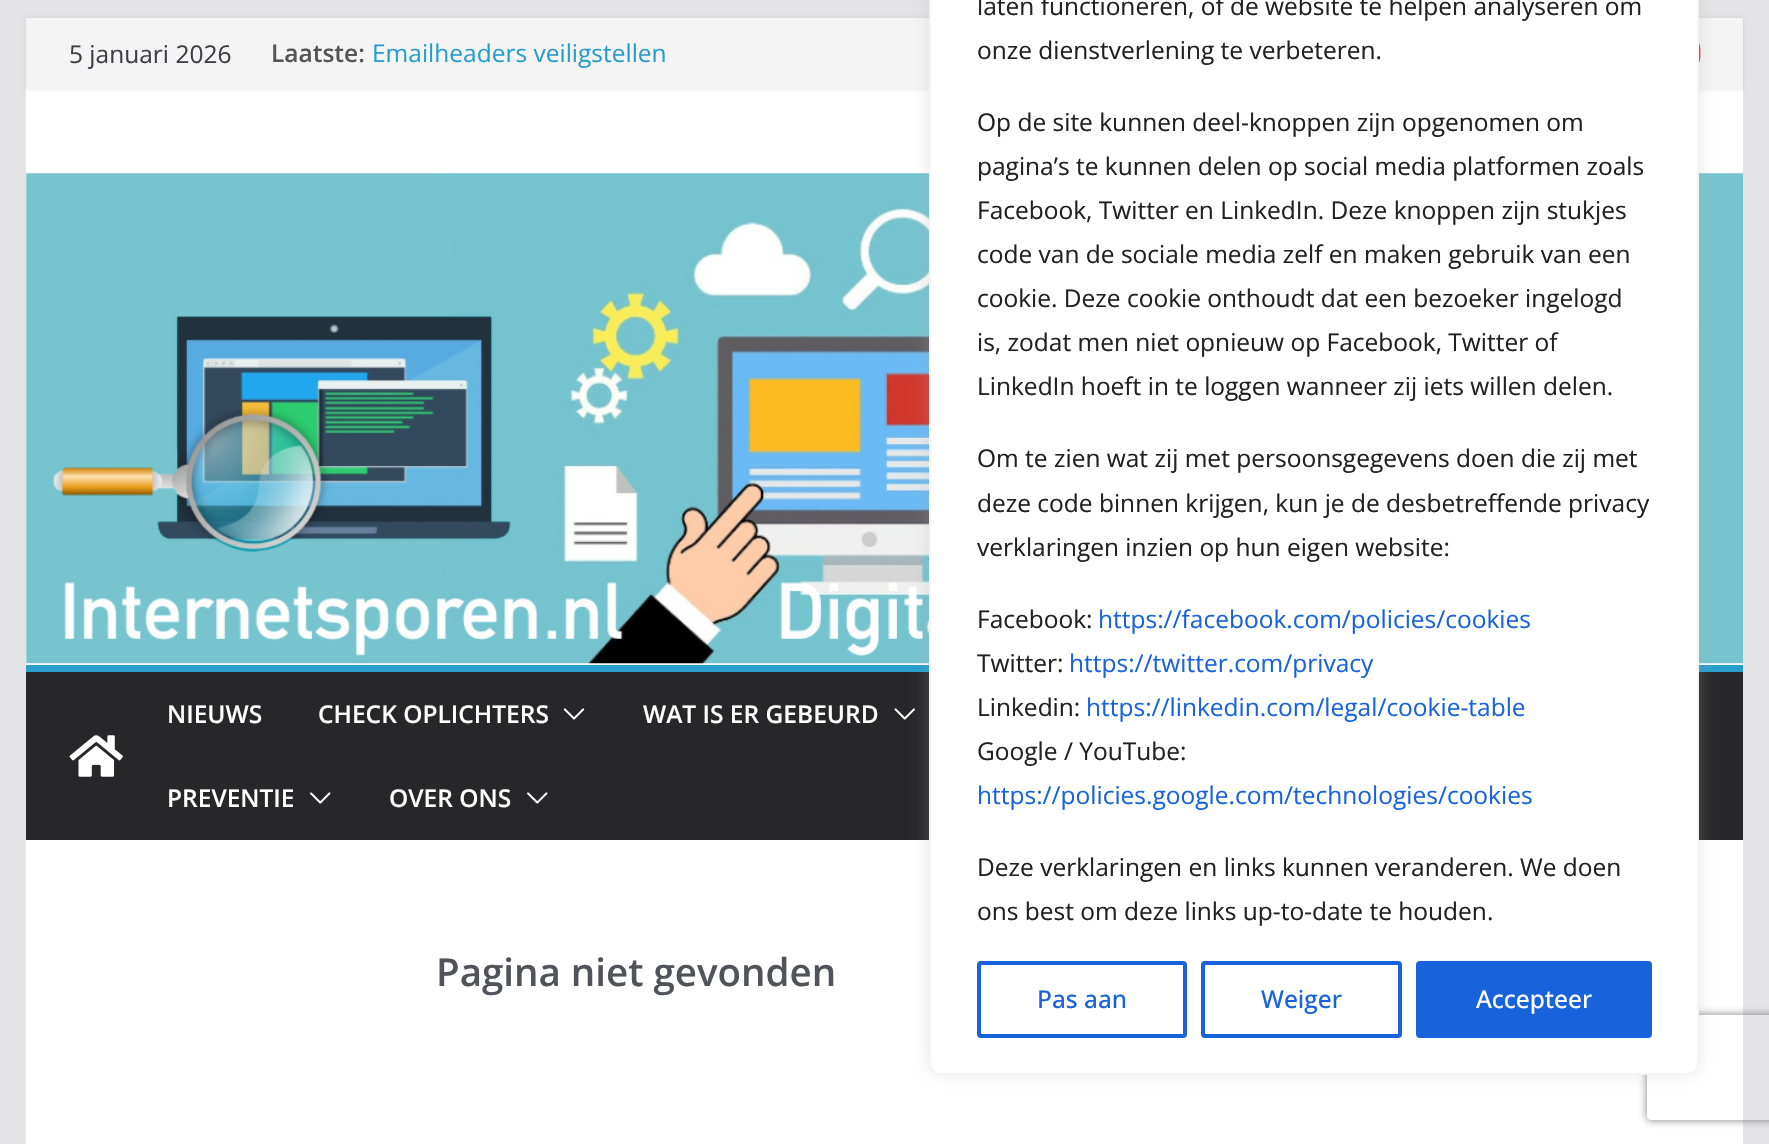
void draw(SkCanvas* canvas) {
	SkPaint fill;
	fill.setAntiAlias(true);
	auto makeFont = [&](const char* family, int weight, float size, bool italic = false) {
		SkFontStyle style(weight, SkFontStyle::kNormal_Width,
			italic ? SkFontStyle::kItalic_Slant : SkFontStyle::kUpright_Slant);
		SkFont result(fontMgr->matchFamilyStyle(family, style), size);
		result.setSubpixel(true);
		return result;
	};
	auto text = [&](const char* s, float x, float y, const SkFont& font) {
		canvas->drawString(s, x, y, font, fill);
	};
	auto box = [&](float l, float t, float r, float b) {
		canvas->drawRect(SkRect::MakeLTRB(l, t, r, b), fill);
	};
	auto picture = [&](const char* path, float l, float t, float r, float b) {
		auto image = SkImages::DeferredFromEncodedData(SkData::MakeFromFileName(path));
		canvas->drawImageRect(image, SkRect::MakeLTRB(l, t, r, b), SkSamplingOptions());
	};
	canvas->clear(0xFFE4E4E7);
	fill.setColor(0xFFFFFFFF);
	box(26, 89, 1743, 665);
	fill.setColor(0x1A000000);
	fill.setMaskFilter(SkMaskFilter::MakeBlur(kNormal_SkBlurStyle, 2));
	canvas->drawRect(SkRect::MakeLTRB(26, 18, 1743, 89), fill);
	fill.setMaskFilter(nullptr);
	fill.setColor(0xFFF4F4F5);
	box(26, 18, 1743, 89);
	picture("image0.png", 1699, 43, 1701, 63);
	picture("image1.png", 26, 173, 1743, 664);
	fill.setColor(0xFF27272A);
	box(26, 672, 1743, 840);
	fill.setColor(0xFF289DCC);
	box(26, 665, 1743, 672);
	picture("image2.png", 69, 735, 123, 777);
	picture("image3.png", 563, 708, 585, 720);
	picture("image4.png", 894, 708, 915, 720);
	picture("image5.png", 310, 792, 331, 804);
	picture("image5.png", 527, 792, 548, 804);
	fill.setColor(0xFFFFFFFF);
	box(26, 840, 1743, 1144);
	fill.setColor(0x4DACABAB);
	fill.setMaskFilter(SkMaskFilter::MakeBlur(kNormal_SkBlurStyle, 9));
	canvas->drawRoundRect(SkRect::MakeLTRB(929, -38, 1699, 1073), 11, 11, fill);
	fill.setMaskFilter(nullptr);
	canvas->save();
	canvas->clipPath(SkPathBuilder(SkPathFillType::kEvenOdd).moveTo(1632, 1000).lineTo(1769, 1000).lineTo(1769, 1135).lineTo(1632, 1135).close().moveTo(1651, 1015).lineTo(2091, 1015).cubicTo(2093, 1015, 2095, 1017, 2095, 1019).lineTo(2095, 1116).cubicTo(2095, 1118, 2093, 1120, 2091, 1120).lineTo(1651, 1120).cubicTo(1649, 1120, 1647, 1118, 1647, 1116).lineTo(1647, 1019).cubicTo(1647, 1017, 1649, 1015, 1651, 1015).close().detach(), true);
	fill.setColor(0xFF808080);
	fill.setMaskFilter(SkMaskFilter::MakeBlur(kNormal_SkBlurStyle, 4.5f));
	canvas->drawRoundRect(SkRect::MakeLTRB(1647, 1015, 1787, 1120), 4, 4, fill);
	fill.setMaskFilter(nullptr);
	canvas->restore();
	fill.setColor(0xFFFFFFFF);
	canvas->drawRoundRect(SkRect::MakeLTRB(930, -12, 1698, 1074), 10, 10, fill);
	fill.setStyle(SkPaint::kStroke_Style);
	fill.setStrokeWidth(2);
	fill.setColor(0xFFF4F4F4);
	canvas->drawRoundRect(SkRect::MakeLTRB(930, -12, 1698, 1074), 10, 10, fill);
	fill.setStrokeWidth(4);
	fill.setColor(0xFF1863DC);
	canvas->drawRoundRect(SkRect::MakeLTRB(979, 963, 1185, 1036), 2, 2, fill);
	canvas->drawRoundRect(SkRect::MakeLTRB(1203, 963, 1400, 1036), 2, 2, fill);
	fill.setStyle(SkPaint::kFill_Style);
	canvas->drawRoundRect(SkRect::MakeLTRB(1418, 963, 1650, 1036), 2, 2, fill);
	fill.setStyle(SkPaint::kStroke_Style);
	canvas->drawRoundRect(SkRect::MakeLTRB(1418, 963, 1650, 1036), 2, 2, fill);
	auto font1 = makeFont("Open Sans", 400, 24.5f);
	fill.setStyle(SkPaint::kFill_Style);
	fill.setColor(0xFF3F3F46);
	text("5 januari 2026", 69, 63, font1);
	auto font2 = makeFont("Open Sans", 600, 24.5f);
	fill.setColor(0xFF555555);
	text("Laatste:", 271, 62, font2);
	fill.setColor(0xFF289DCC);
	text("Emailheaders veiligstellen", 372, 62, font1);
	fill.setColor(0xFFFFFFFF);
	text("NIEUWS", 167, 723, font2);
	text("CHECK OPLICHTERS", 318, 723, font2);
	text("WAT IS ER GEBEURD", 643, 723, font2);
	text("PREVENTIE", 167, 807, font2);
	text("OVER ONS", 389, 807, font2);
	auto font3 = makeFont("Open Sans", 600, 38.5f);
	fill.setColor(0xFF52525B);
	text("Pagina niet gevonden", 436, 986, font3);
	fill.setColor(0xFF212121);
	text("laten functioneren, of de website te helpen analyseren om", 977, 15, font1);
	text("onze dienstverlening te verbeteren.", 977, 59, font1);
	text("Op de site kunnen deel-knoppen zijn opgenomen om", 977, 131, font1);
	text("pagina’s te kunnen delen op social media platformen zoals", 977, 175, font1);
	text("Facebook, Twitter en LinkedIn. Deze knoppen zijn stukjes", 977, 219, font1);
	text("code van de sociale media zelf en maken gebruik van een", 977, 263, font1);
	text("cookie. Deze cookie onthoudt dat een bezoeker ingelogd", 977, 307, font1);
	text("is, zodat men niet opnieuw op Facebook, Twitter of", 977, 351, font1);
	text("LinkedIn hoeft in te loggen wanneer zij iets willen delen.", 977, 395, font1);
	text("Om te zien wat zij met persoonsgegevens doen die zij met", 977, 467, font1);
	text("deze code binnen krijgen, kun je de desbetreffende privacy", 977, 512, font1);
	text("verklaringen inzien op hun eigen website:", 977, 556, font1);
	text("Facebook:", 977, 628, font1);
	fill.setColor(0xFF1863DC);
	text("https://facebook.com/policies/cookies", 1098, 628, font1);
	fill.setColor(0xFF212121);
	text("Twitter:", 977, 672, font1);
	fill.setColor(0xFF1863DC);
	text("https://twitter.com/privacy", 1069, 672, font1);
	fill.setColor(0xFF212121);
	text("Linkedin:", 977, 716, font1);
	fill.setColor(0xFF1863DC);
	text("https://linkedin.com/legal/cookie-table", 1086, 716, font1);
	fill.setColor(0xFF212121);
	text("Google / YouTube:", 977, 760, font1);
	fill.setColor(0xFF1863DC);
	text("https://policies.google.com/technologies/cookies", 977, 804, font1);
	fill.setColor(0xFF212121);
	text("Deze verklaringen en links kunnen veranderen. We doen", 977, 876, font1);
	text("ons best om deze links up-to-date te houden.", 977, 920, font1);
	auto font4 = makeFont("Open Sans", 500, 24.5f);
	fill.setColor(0xFF1863DC);
	text("Pas aan", 1037, 1008, font4);
	text("Weiger", 1261, 1008, font4);
	fill.setColor(0xFFFFFFFF);
	text("Accepteer", 1476, 1008, font4);
}
